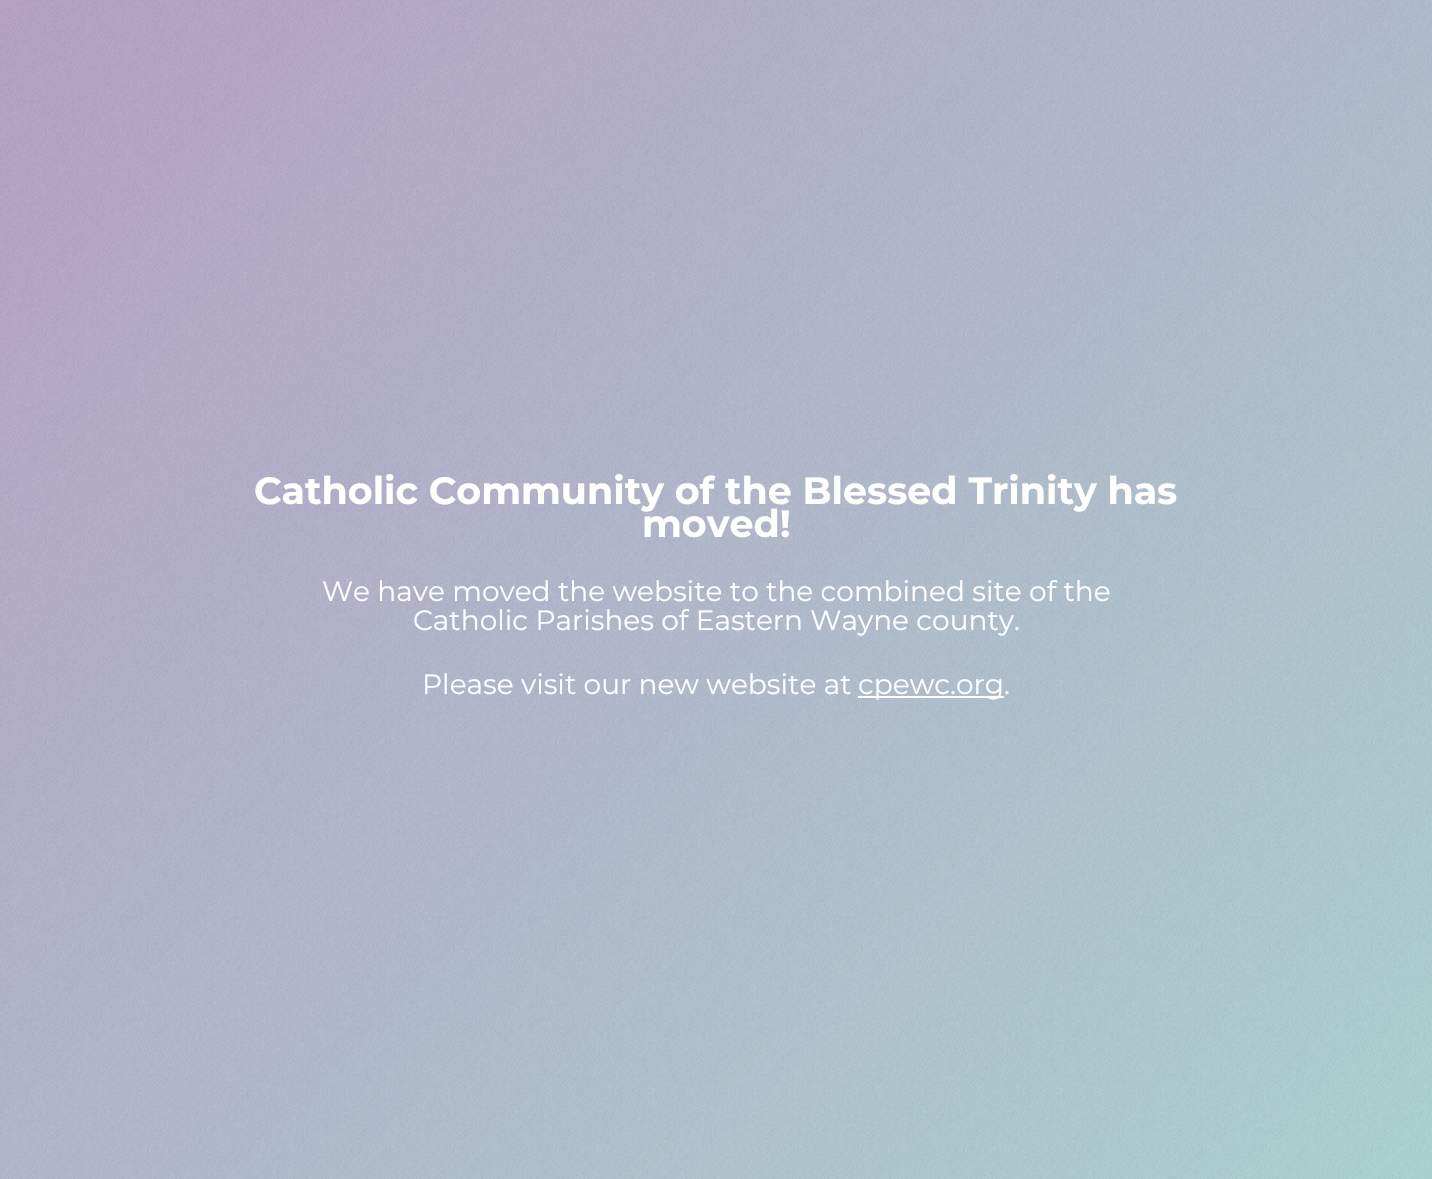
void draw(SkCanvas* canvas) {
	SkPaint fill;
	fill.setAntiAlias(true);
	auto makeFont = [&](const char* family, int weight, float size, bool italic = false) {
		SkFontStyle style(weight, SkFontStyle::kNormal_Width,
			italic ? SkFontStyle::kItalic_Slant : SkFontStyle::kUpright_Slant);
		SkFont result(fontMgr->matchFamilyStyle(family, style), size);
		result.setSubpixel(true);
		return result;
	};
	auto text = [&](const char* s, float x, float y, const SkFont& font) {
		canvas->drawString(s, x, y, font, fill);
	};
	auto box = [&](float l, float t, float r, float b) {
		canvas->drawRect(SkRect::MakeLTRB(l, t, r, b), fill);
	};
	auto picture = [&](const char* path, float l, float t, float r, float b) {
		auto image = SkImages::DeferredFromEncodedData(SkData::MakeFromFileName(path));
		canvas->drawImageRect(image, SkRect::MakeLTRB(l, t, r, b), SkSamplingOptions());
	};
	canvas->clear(0xFFFFFFFF);
	picture("image0.png", 0, 0, 1432, 1179);
	fill.setColor(0xFFFFFFFF);
	box(858, 696, 1004, 698);
	auto font1 = makeFont("Montserrat", 700, 38);
	text("Catholic Community of the Blessed Trinity has", 254, 504, font1);
	text("moved!", 642, 537, font1);
	auto font2 = makeFont("Montserrat", 400, 28);
	text("We have moved the website to the combined site of the", 322, 601, font2);
	text("Catholic Parishes of Eastern Wayne county.", 413, 630, font2);
	text("Please visit our new website at", 422, 694, font2);
	text("cpewc.org.", 858, 694, font2);
}
